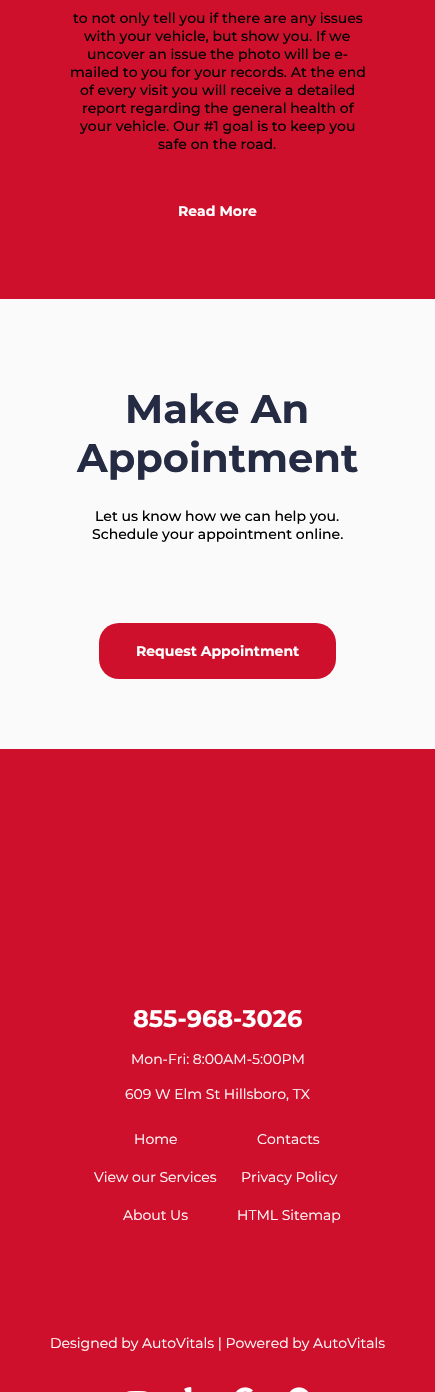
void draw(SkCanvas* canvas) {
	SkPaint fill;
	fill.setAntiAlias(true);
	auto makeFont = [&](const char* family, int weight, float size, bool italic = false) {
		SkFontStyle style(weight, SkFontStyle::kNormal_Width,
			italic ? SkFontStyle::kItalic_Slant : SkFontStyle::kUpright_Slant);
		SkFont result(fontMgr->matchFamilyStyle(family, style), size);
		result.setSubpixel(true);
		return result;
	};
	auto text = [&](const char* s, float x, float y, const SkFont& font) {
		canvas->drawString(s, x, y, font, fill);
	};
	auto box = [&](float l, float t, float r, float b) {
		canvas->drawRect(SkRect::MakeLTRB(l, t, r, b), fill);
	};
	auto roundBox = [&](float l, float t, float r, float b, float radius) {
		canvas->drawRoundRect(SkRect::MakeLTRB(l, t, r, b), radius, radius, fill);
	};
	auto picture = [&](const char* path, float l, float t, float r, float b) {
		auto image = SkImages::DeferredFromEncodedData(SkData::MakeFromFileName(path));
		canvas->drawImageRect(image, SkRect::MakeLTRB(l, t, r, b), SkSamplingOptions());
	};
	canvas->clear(0xFFCE102C);
	fill.setColor(0xFFFAFAFA);
	box(0, 299, 435, 749);
	fill.setColor(0xFFCE102C);
	roundBox(99, 623, 336, 679, 20);
	picture("image0.png", 127, 1391, 147, 1392);
	picture("image1.png", 184, 1387, 192, 1392);
	picture("image2.png", 236, 1387, 253, 1392);
	picture("image3.png", 289, 1387, 309, 1392);
	auto font1 = makeFont("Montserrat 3", 100, 14);
	fill.setColor(0xFF000000);
	text("to not only tell you if there are any issues", 73, 23, font1);
	text("with your vehicle, but show you. If we", 84, 41, font1);
	text("uncover an issue the photo will be e-", 87, 59, font1);
	text("mailed to you for your records. At the end", 70, 77, font1);
	text("of every visit you will receive a detailed", 80, 95, font1);
	text("report regarding the general health of", 82, 113, font1);
	text("your vehicle. Our #1 goal is to keep you", 80, 131, font1);
	text("safe on the road.", 158, 149, font1);
	auto font2 = makeFont("Montserrat", 100, 14);
	fill.setColor(0xFFFFFFFF);
	text("Read More", 178, 216, font2);
	auto font3 = makeFont("Montserrat", 100, 40);
	fill.setColor(0xFF252B42);
	text("Make An", 125, 423, font3);
	text("Appointment", 77, 472, font3);
	fill.setColor(0xFF000000);
	text("Let us know how we can help you.", 95, 521, font1);
	text("Schedule your appointment online.", 92, 539, font1);
	fill.setColor(0xFFFFFFFF);
	text("Request Appointment", 136, 656, font2);
	auto font4 = makeFont("Montserrat", 100, 24);
	text("855-968-3026", 133, 1027, font4);
	auto font5 = makeFont("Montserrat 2", 100, 14);
	text("Mon-Fri: 8:00AM-5:00PM", 131, 1064, font5);
	text("609 W Elm St Hillsboro, TX", 125, 1099, font5);
	text("Home", 134, 1144, font5);
	text("View our Services", 94, 1182, font5);
	text("About Us", 123, 1220, font5);
	text("Contacts", 257, 1144, font5);
	text("Privacy Policy", 241, 1182, font5);
	text("HTML Sitemap", 237, 1220, font5);
	text("Designed by AutoVitals | Powered by AutoVitals", 50, 1348, font5);
}
